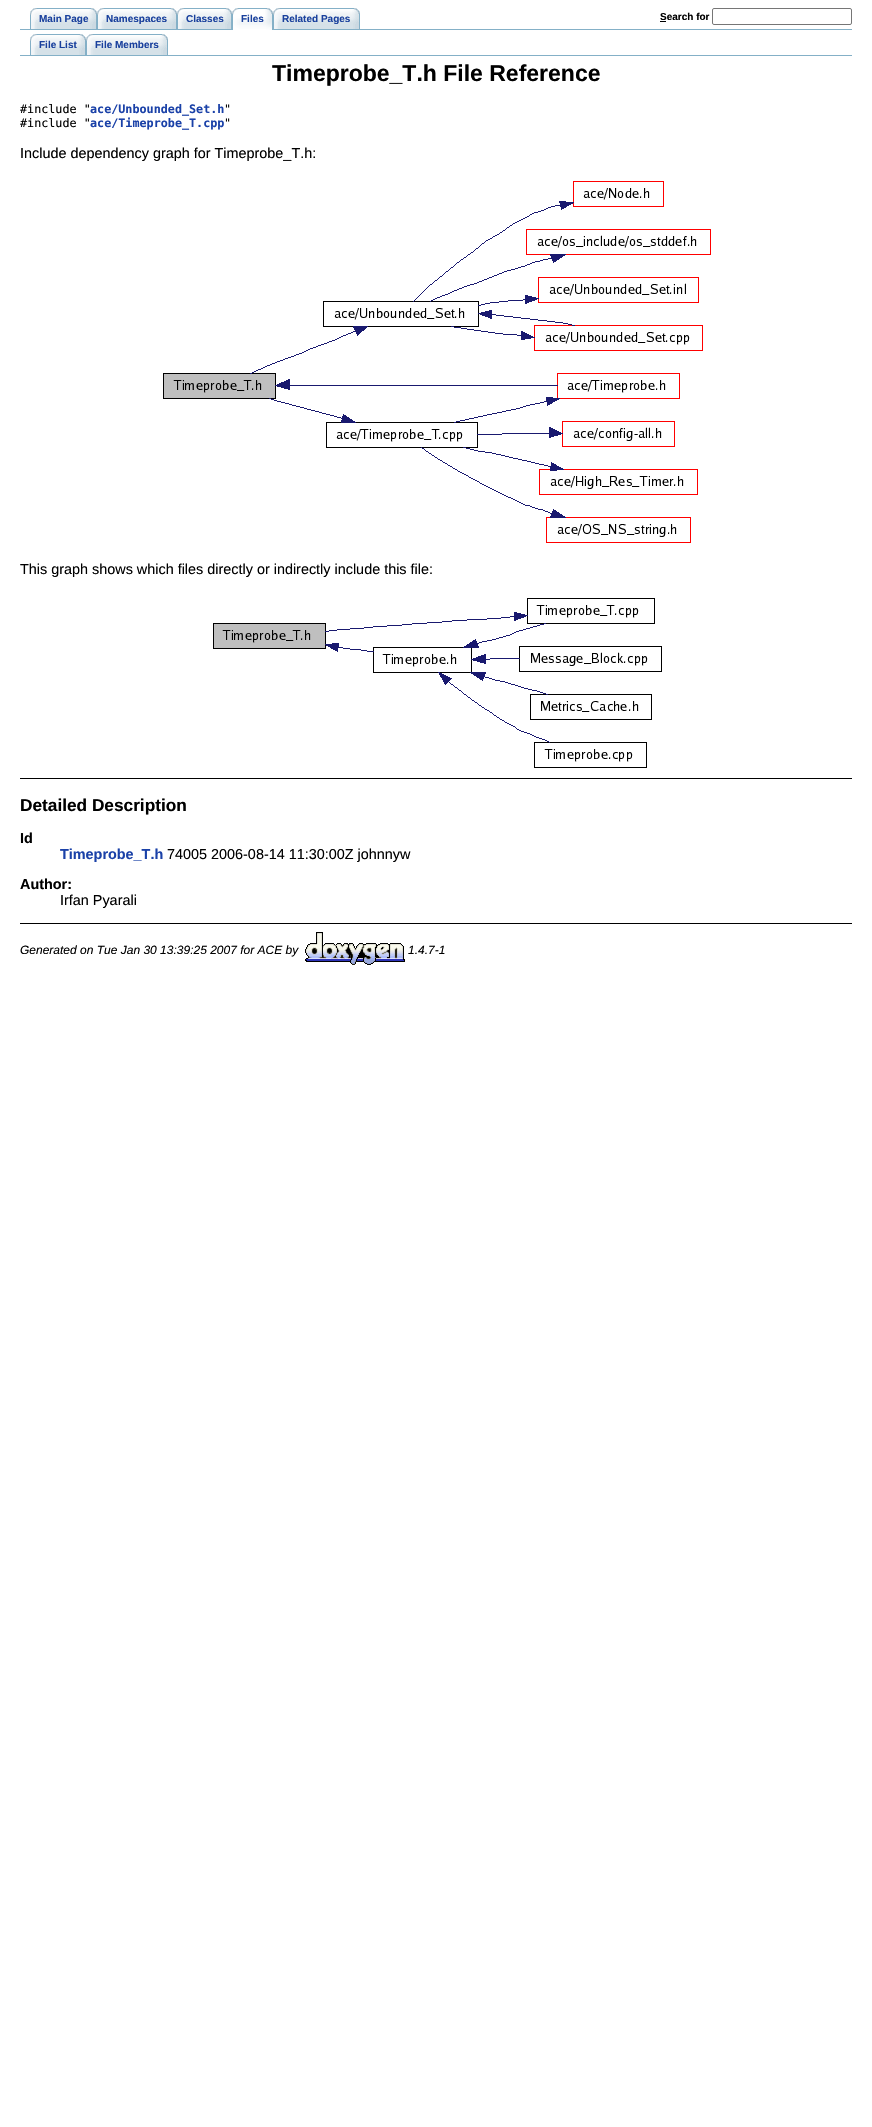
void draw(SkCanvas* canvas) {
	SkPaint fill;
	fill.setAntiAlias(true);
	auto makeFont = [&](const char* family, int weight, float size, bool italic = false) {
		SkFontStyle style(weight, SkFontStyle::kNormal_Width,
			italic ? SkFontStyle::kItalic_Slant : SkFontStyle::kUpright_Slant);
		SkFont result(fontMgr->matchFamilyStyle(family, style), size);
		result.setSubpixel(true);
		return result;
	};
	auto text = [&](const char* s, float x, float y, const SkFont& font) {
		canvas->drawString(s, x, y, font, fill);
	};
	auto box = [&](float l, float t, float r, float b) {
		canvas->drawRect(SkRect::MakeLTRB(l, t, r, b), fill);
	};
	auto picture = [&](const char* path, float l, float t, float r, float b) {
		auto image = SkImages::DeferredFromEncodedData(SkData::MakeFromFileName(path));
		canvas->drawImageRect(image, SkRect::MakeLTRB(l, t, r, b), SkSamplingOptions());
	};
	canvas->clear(0xFFFFFFFF);
	fill.setColor(0xFF84B0C7);
	box(20, 29, 852, 30);
	picture("image0.png", 39, 8, 97, 29);
	picture("image1.png", 30, 8, 39, 29);
	picture("image2.png", 106, 8, 177, 29);
	picture("image1.png", 97, 8, 106, 29);
	picture("image3.png", 186, 8, 232, 29);
	picture("image1.png", 177, 8, 186, 29);
	picture("image4.png", 239, 8, 273, 30);
	picture("image5.png", 232, 8, 239, 30);
	picture("image6.png", 282, 8, 360, 29);
	picture("image1.png", 273, 8, 282, 29);
	fill.setColor(0xFF000000);
	box(660, 21, 666, 22);
	fill.setStyle(SkPaint::kStroke_Style);
	fill.setStrokeWidth(1);
	fill.setColor(0xFF767676);
	canvas->drawRoundRect(SkRect::MakeLTRB(712.5f, 8.5f, 851.5f, 24.5f), 1.5f, 1.5f, fill);
	fill.setStyle(SkPaint::kFill_Style);
	fill.setColor(0xFF84B0C7);
	box(20, 55, 852, 56);
	picture("image7.png", 39, 34, 86, 55);
	picture("image1.png", 30, 34, 39, 55);
	picture("image8.png", 95, 34, 168, 55);
	picture("image1.png", 86, 34, 95, 55);
	picture("image9.png", 163, 181, 711, 543);
	picture("image10.png", 213, 598, 662, 768);
	fill.setColor(0xFF000000);
	box(20, 778, 852, 779);
	box(20, 923, 852, 924);
	picture("image11.png", 305, 932, 405, 965);
	auto font1 = makeFont("Liberation Sans", 700, 10);
	fill.setColor(0xFF1A419D);
	text("Main Page", 39, 22, font1);
	text("Namespaces", 106, 22, font1);
	text("Classes", 186, 22, font1);
	text("Files", 241, 22, font1);
	text("Related Pages", 282, 22, font1);
	fill.setColor(0xFF000000);
	text("Search for", 660, 20, font1);
	fill.setColor(0xFF1A419D);
	text("File List", 39, 48, font1);
	text("File Members", 95, 48, font1);
	auto font2 = makeFont("Liberation Sans", 700, 23);
	fill.setColor(0xFF000000);
	text("Timeprobe_T.h File Reference", 272, 81, font2);
	auto font3 = makeFont("DejaVu Sans Mono", 400, 11.75f);
	text("#include \"", 20, 113, font3);
	auto font4 = makeFont("DejaVu Sans Mono", 700, 11.75f);
	fill.setColor(0xFF1A41A8);
	text("ace/Unbounded_Set.h", 90, 113, font4);
	fill.setColor(0xFF000000);
	text("\"", 224, 113, font3);
	text("#include \"", 20, 127, font3);
	fill.setColor(0xFF1A41A8);
	text("ace/Timeprobe_T.cpp", 90, 127, font4);
	fill.setColor(0xFF000000);
	text("\"", 224, 127, font3);
	auto font5 = makeFont("Liberation Sans", 400, 14.4f);
	text("Include dependency graph for Timeprobe_T.h:", 20, 158, font5);
	text("This graph shows which files directly or indirectly include this file:", 20, 574, font5);
	auto font6 = makeFont("Liberation Sans", 700, 17.25f);
	text("Detailed Description", 20, 811, font6);
	auto font7 = makeFont("Liberation Sans", 700, 14.4f);
	text("Id", 20, 843, font7);
	fill.setColor(0xFF1A41A8);
	text("Timeprobe_T.h", 60, 859, font7);
	fill.setColor(0xFF000000);
	text("74005 2006-08-14 11:30:00Z johnnyw", 167, 859, font5);
	text("Author:", 20, 889, font7);
	text("Irfan Pyarali", 60, 905, font5);
	auto font8 = makeFont("Liberation Sans", 400, 12, true);
	text("Generated on Tue Jan 30 13:39:25 2007 for ACE by", 20, 954, font8);
	text("1.4.7-1", 408, 954, font8);
}
